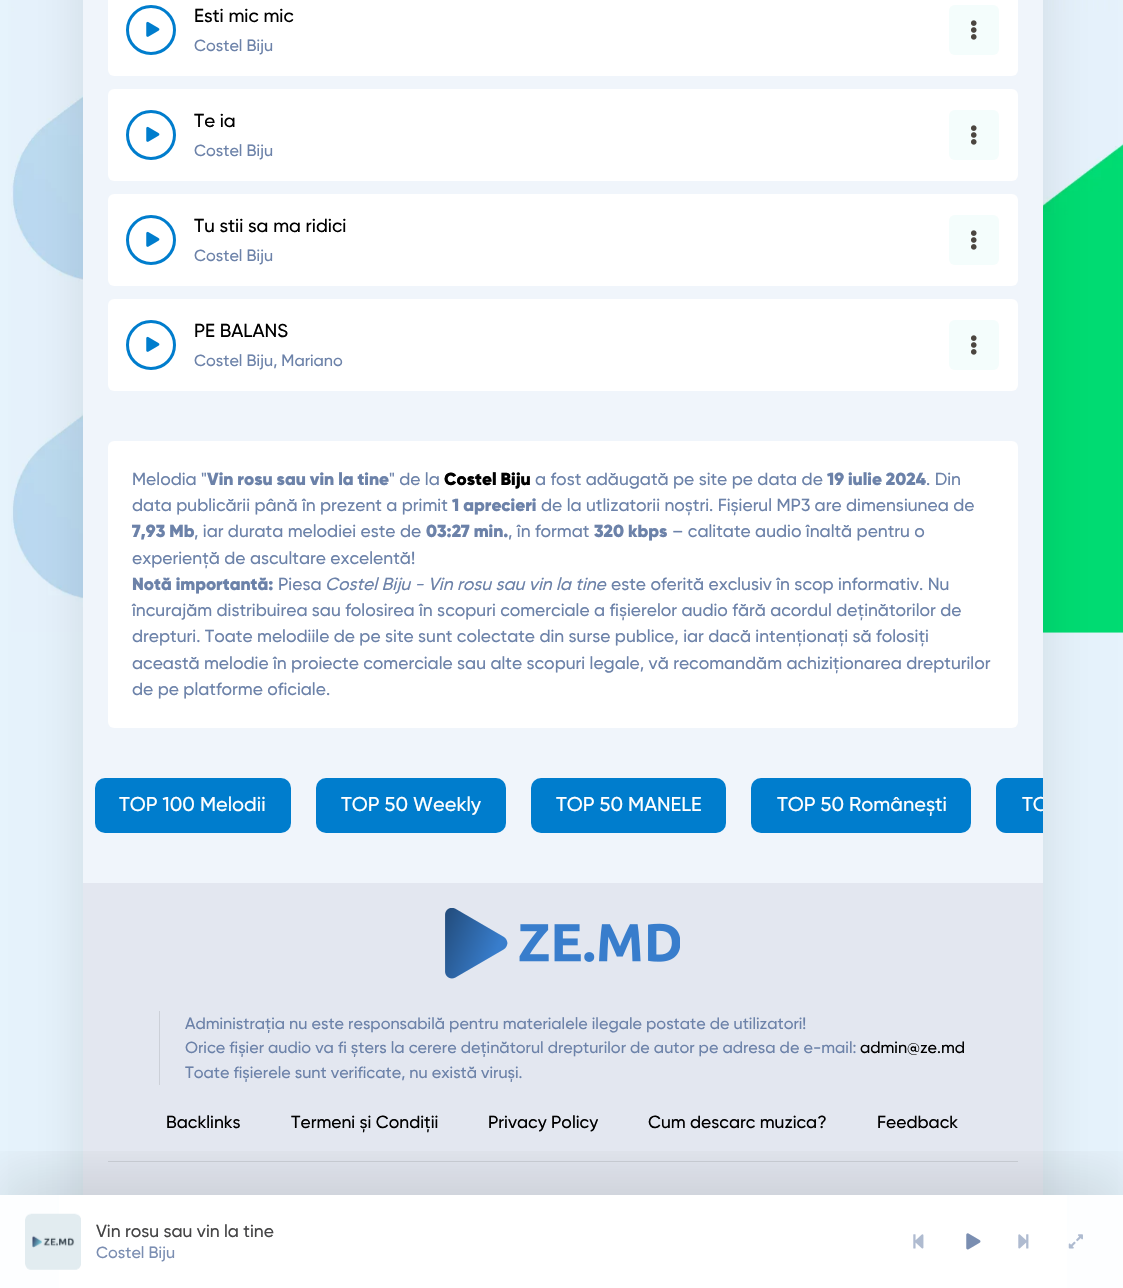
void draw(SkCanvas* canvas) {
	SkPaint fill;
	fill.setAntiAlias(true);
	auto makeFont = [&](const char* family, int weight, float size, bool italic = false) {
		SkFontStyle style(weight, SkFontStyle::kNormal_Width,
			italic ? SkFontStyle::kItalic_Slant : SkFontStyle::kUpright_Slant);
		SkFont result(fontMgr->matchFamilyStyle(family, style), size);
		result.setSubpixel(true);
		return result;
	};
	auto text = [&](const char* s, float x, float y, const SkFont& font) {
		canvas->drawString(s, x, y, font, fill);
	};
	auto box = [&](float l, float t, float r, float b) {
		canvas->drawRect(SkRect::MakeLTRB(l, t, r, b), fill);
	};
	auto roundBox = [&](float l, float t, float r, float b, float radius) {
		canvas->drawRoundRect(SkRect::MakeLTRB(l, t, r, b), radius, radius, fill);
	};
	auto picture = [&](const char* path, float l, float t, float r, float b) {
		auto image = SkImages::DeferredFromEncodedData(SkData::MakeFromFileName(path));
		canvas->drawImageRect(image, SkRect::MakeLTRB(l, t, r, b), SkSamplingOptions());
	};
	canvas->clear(0xFFE6F3FC);
	picture("image0.png", 11, 0, 1123, 633);
	fill.setColor(0x1A000000);
	fill.setMaskFilter(SkMaskFilter::MakeBlur(kNormal_SkBlurStyle, 25));
	canvas->drawRect(SkRect::MakeLTRB(83, -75, 1043, 1264), fill);
	fill.setMaskFilter(nullptr);
	fill.setColor(0xFFF0F5FB);
	box(83, 0, 1043, 883);
	fill.setColor(0xFFFFFFFF);
	roundBox(108, -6, 1018, 76, 6);
	fill.setStyle(SkPaint::kStroke_Style);
	fill.setStrokeWidth(3);
	fill.setColor(0xFF007DCD);
	canvas->drawCircle(151, 30, 23.5f, fill);
	picture("image1.png", 146, 21, 160, 37);
	fill.setStyle(SkPaint::kFill_Style);
	fill.setColor(0xFFF4FDFC);
	roundBox(949, 5, 999, 55, 6);
	picture("image2.png", 971, 20, 977, 40);
	fill.setColor(0xFFFFFFFF);
	roundBox(108, 89, 1018, 181, 6);
	fill.setStyle(SkPaint::kStroke_Style);
	fill.setColor(0xFF007DCD);
	canvas->drawCircle(151, 135, 23.5f, fill);
	picture("image1.png", 146, 126, 160, 142);
	fill.setStyle(SkPaint::kFill_Style);
	fill.setColor(0xFFF4FDFC);
	roundBox(949, 110, 999, 160, 6);
	picture("image2.png", 971, 125, 977, 145);
	fill.setColor(0xFFFFFFFF);
	roundBox(108, 194, 1018, 286, 6);
	fill.setStyle(SkPaint::kStroke_Style);
	fill.setColor(0xFF007DCD);
	canvas->drawCircle(151, 240, 23.5f, fill);
	picture("image1.png", 146, 231, 160, 247);
	fill.setStyle(SkPaint::kFill_Style);
	fill.setColor(0xFFF4FDFC);
	roundBox(949, 215, 999, 265, 6);
	picture("image2.png", 971, 230, 977, 250);
	fill.setColor(0xFFFFFFFF);
	roundBox(108, 299, 1018, 391, 6);
	fill.setStyle(SkPaint::kStroke_Style);
	fill.setColor(0xFF007DCD);
	canvas->drawCircle(151, 345, 23.5f, fill);
	picture("image1.png", 146, 336, 160, 352);
	fill.setStyle(SkPaint::kFill_Style);
	fill.setColor(0xFFF4FDFC);
	roundBox(949, 320, 999, 370, 6);
	picture("image2.png", 971, 335, 977, 355);
	fill.setColor(0xFFFFFFFF);
	roundBox(108, 441, 1018, 728, 6);
	fill.setColor(0xFF007DCD);
	roundBox(95, 778, 291, 833, 10);
	roundBox(316, 778, 506, 833, 10);
	roundBox(531, 778, 726, 833, 10);
	roundBox(751, 778, 971, 833, 10);
	canvas->drawPath(SkPathBuilder().moveTo(1006, 778).lineTo(1043, 778).lineTo(1043, 833).lineTo(1006, 833).cubicTo(1000.5f, 833, 996, 828.5f, 996, 823).lineTo(996, 788).cubicTo(996, 782.5f, 1000.5f, 778, 1006, 778).close().detach(), fill);
	fill.setColor(0xFFE3E7F0);
	box(83, 883, 1043, 1239);
	picture("image3.png", 445, 908, 680, 979);
	fill.setColor(0xFFCCD0D8);
	box(159, 1011, 160, 1085);
	box(108, 1161, 1018, 1162);
	canvas->save();
	canvas->clipRect(SkRect::MakeLTRB(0, 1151, 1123, 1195));
	fill.setColor(0x17000000);
	fill.setMaskFilter(SkMaskFilter::MakeBlur(kNormal_SkBlurStyle, 25));
	canvas->drawRect(SkRect::MakeLTRB(0, 1170, 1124, 1264), fill);
	fill.setMaskFilter(nullptr);
	canvas->restore();
	fill.setColor(0xE6FFFFFF);
	box(0, 1195, 1123, 1288);
	box(59, 1195, 1067, 1288);
	picture("image4.png", 25, 1213, 81, 1270);
	picture("image5.png", 913, 1234, 924, 1249);
	picture("image6.png", 966, 1233, 981, 1250);
	picture("image7.png", 1018, 1234, 1029, 1249);
	picture("image8.png", 1068, 1234, 1083, 1249);
	auto font1 = makeFont("Gilroy", 500, 18.75f);
	fill.setColor(0xFF000000);
	text("Esti mic mic", 194, 22, font1);
	auto font2 = makeFont("Gilroy", 500, 16.25f);
	fill.setColor(0xFF6C82A9);
	text("Costel Biju", 194, 51, font2);
	fill.setColor(0xFF000000);
	text("Te ia", 194, 127, font1);
	fill.setColor(0xFF6C82A9);
	text("Costel Biju", 194, 156, font2);
	fill.setColor(0xFF000000);
	text("Tu stii sa ma ridici", 194, 232, font1);
	fill.setColor(0xFF6C82A9);
	text("Costel Biju", 194, 261, font2);
	fill.setColor(0xFF000000);
	text("PE BALANS", 194, 337, font1);
	fill.setColor(0xFF6C82A9);
	text("Costel Biju, Mariano", 194, 366, font2);
	auto font3 = makeFont("Gilroy", 500, 17.5f);
	text("Melodia \"", 132, 485, font3);
	auto font4 = makeFont("Gilroy", 900, 17.5f);
	text("Vin rosu sau vin la tine", 207, 485, font4);
	text("\" de la", 389, 485, font3);
	fill.setColor(0xFF000000);
	text("Costel Biju", 444, 485, font4);
	fill.setColor(0xFF6C82A9);
	text("a fost adăugată pe site pe data de", 535, 485, font3);
	text("19 iulie 2024", 827, 485, font4);
	text(". Din", 926, 485, font3);
	text("data publicării până în prezent a primit", 132, 511, font3);
	text("1 aprecieri", 452, 511, font4);
	text("de la utlizatorii noștri. Fișierul MP3 are dimensiunea de", 541, 511, font3);
	text("7,93 Mb", 132, 537, font4);
	text(", iar durata melodiei este de", 194, 537, font3);
	text("03:27 min.", 426, 537, font4);
	text(", în format", 508, 537, font3);
	text("320 kbps", 594, 537, font4);
	text("– calitate audio înaltă pentru o", 672, 537, font3);
	text("experiență de ascultare excelentă!", 132, 564, font3);
	text("Notă importantă:", 132, 590, font4);
	text("Piesa", 278, 590, font3);
	auto font5 = makeFont("Gilroy", 500, 17.5f, true);
	text("Costel Biju - Vin rosu sau vin la tine", 325, 590, font5);
	text("este oferită exclusiv în scop informativ. Nu", 611, 590, font3);
	text("încurajăm distribuirea sau folosirea în scopuri comerciale a fișierelor audio fără acordul deținătorilor de", 132, 616, font3);
	text("drepturi. Toate melodiile de pe site sunt colectate din surse publice, iar dacă intenționați să folosiți", 132, 642, font3);
	text("această melodie în proiecte comerciale sau alte scopuri legale, vă recomandăm achiziționarea drepturilor", 132, 669, font3);
	text("de pe platforme oficiale.", 132, 695, font3);
	auto font6 = makeFont("Gilroy", 500, 20);
	fill.setColor(0xFFFFFFFF);
	text("TOP 100 Melodii", 119, 811, font6);
	text("TOP 50 Weekly", 341, 811, font6);
	text("TOP 50 MANELE", 556, 811, font6);
	text("TOP 50 Românești", 777, 811, font6);
	canvas->save();
	canvas->clipRect(SkRect::MakeLTRB(83, 778, 1043, 833));
	text("TO", 1022, 811, font6);
	canvas->restore();
	fill.setColor(0xFF6C82A9);
	text("Administrația nu este responsabilă pentru materialele ilegale postate de utilizatori!", 185, 1029, font2);
	text("Orice fișier audio va fi șters la cerere deținătorul drepturilor de autor pe adresa de e-mail:", 185, 1053, font2);
	fill.setColor(0xFF000000);
	text("admin@ze.md", 860, 1053, font2);
	fill.setColor(0xFF6C82A9);
	text("Toate fișierele sunt verificate, nu există viruși.", 185, 1078, font2);
	fill.setColor(0xFF000000);
	text("Backlinks", 166, 1128, font3);
	text("Termeni și Condiții", 291, 1128, font3);
	text("Privacy Policy", 488, 1128, font3);
	text("Cum descarc muzica?", 648, 1128, font3);
	text("Feedback", 877, 1128, font3);
	fill.setColor(0xFF454546);
	text("Vin rosu sau vin la tine", 96, 1237, font3);
	fill.setColor(0xFF7B8EB2);
	text("Costel Biju", 96, 1258, font2);
}
